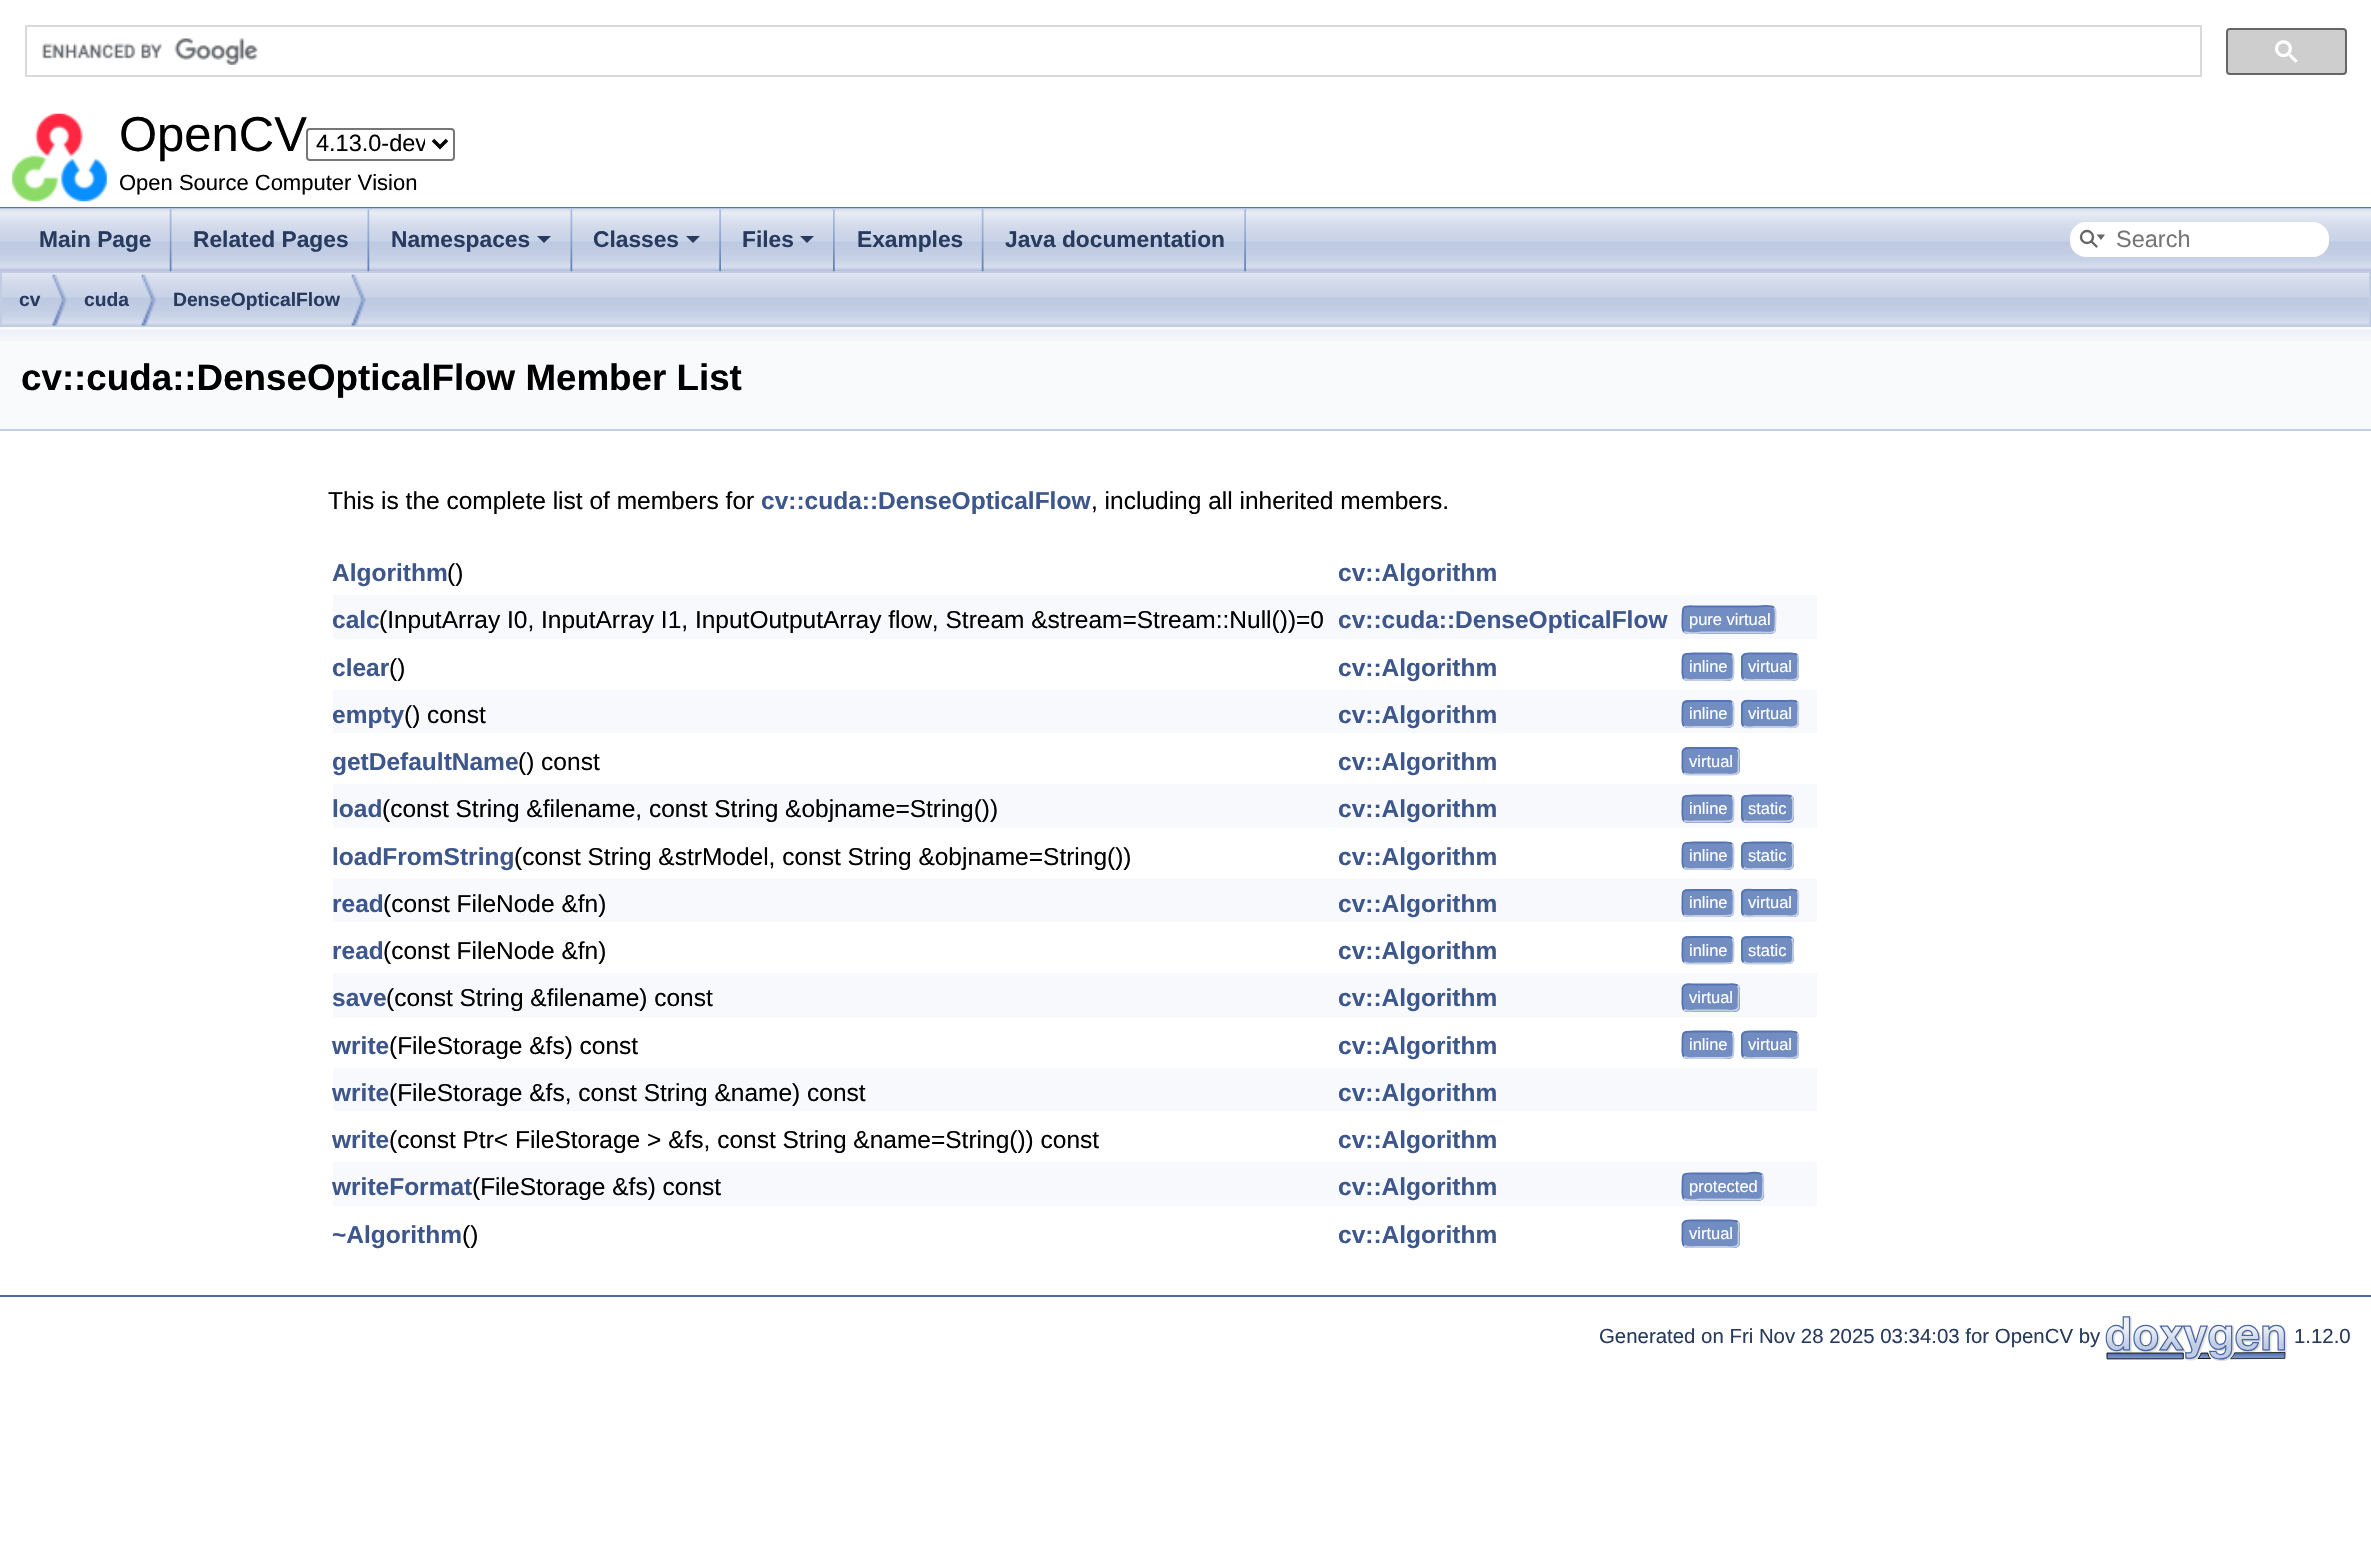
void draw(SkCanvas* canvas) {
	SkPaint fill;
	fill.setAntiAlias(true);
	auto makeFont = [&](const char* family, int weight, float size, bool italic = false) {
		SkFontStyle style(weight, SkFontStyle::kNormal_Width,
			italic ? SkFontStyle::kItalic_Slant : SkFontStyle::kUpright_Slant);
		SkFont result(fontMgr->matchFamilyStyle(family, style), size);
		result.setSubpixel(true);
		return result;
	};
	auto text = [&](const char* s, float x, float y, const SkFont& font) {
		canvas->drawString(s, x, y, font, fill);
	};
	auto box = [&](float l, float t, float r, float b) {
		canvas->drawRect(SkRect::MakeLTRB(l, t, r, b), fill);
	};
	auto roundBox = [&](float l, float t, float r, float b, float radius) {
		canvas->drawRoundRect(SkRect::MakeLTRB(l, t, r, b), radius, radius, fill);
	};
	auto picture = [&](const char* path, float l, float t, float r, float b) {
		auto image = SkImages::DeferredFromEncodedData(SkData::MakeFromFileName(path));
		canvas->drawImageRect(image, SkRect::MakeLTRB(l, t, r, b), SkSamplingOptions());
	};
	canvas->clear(0xFFFFFFFF);
	fill.setColor(0xFF5373B4);
	box(0, 207, 2371, 209);
	fill.setStyle(SkPaint::kStroke_Style);
	fill.setStrokeWidth(2);
	fill.setColor(0xFFD9D9D9);
	canvas->drawRect(SkRect::MakeLTRB(26, 26, 2201, 76), fill);
	picture("image0.png", 42, 38, 258, 65);
	fill.setStyle(SkPaint::kFill_Style);
	fill.setColor(0xFFCECECE);
	canvas->drawRoundRect(SkRect::MakeLTRB(2227, 29, 2346, 74), 3, 3, fill);
	fill.setStyle(SkPaint::kStroke_Style);
	fill.setColor(0xFF666666);
	canvas->drawRoundRect(SkRect::MakeLTRB(2227, 29, 2346, 74), 3, 3, fill);
	picture("image1.png", 2275, 40, 2298, 63);
	picture("image2.png", 12, 113, 107, 202);
	picture("image3.png", 0, 208, 2371, 271);
	picture("image8.png", 2, 273, 2369, 325);
	fill.setColor(0xFFC2CDE4);
	canvas->drawRect(SkRect::MakeLTRB(1, 272, 2370, 326), fill);
	picture("image4.png", 169, 209, 172, 272);
	picture("image5.png", 367, 209, 370, 272);
	picture("image5.png", 570, 209, 573, 272);
	fill.setStyle(SkPaint::kFill_Style);
	fill.setColor(0xFF283A5D);
	canvas->drawPath(SkPathBuilder().moveTo(537, 236).lineTo(551, 236).lineTo(544, 243).close().detach(), fill);
	picture("image6.png", 719, 209, 721, 272);
	canvas->drawPath(SkPathBuilder().moveTo(686, 236).lineTo(700, 236).lineTo(693, 243).close().detach(), fill);
	picture("image7.png", 833, 209, 835, 272);
	canvas->drawPath(SkPathBuilder().moveTo(800, 236).lineTo(814, 236).lineTo(807, 243).close().detach(), fill);
	picture("image4.png", 981, 209, 984, 272);
	picture("image6.png", 1244, 209, 1246, 272);
	fill.setColor(0xFFFFFFFF);
	roundBox(2070, 222, 2329, 257, 16);
	fill.setStyle(SkPaint::kStroke_Style);
	fill.setStrokeWidth(2.4f);
	fill.setColor(0xFF656565);
	canvas->drawCircle(2087, 237, 6, fill);
	fill.setStyle(SkPaint::kFill_Style);
	canvas->drawPath(SkPathBuilder().moveTo(2096.5f, 234.5f).lineTo(2101, 240).lineTo(2105, 234.5f).close().detach(), fill);
	fill.setStyle(SkPaint::kStroke_Style);
	fill.setStrokeCap(SkPaint::kRound_Cap);
	canvas->drawPath(SkPathBuilder().moveTo(2091.5f, 241.5f).lineTo(2096.5f, 246.5f).detach(), fill);
	picture("image9.png", 52, 274, 67, 326);
	picture("image10.png", 141, 274, 156, 326);
	picture("image11.png", 351, 274, 366, 326);
	fill.setStyle(SkPaint::kFill_Style);
	fill.setColor(0xFFF9FAFC);
	box(0, 327, 2371, 429);
	picture("image12.png", 0, 329, 2371, 341);
	fill.setColor(0xFFC4CFE5);
	box(0, 429, 2371, 431);
	fill.setColor(0xFFF8F9FC);
	box(333, 595, 1817, 639);
	fill.setColor(0xFF728DC1);
	roundBox(1682, 606, 1776, 634, 5);
	fill.setStyle(SkPaint::kStroke_Style);
	fill.setStrokeWidth(1.8f);
	fill.setStrokeCap(SkPaint::kButt_Cap);
	fill.setColor(0xFFC4CFE5);
	canvas->drawPath(SkPathBuilder().moveTo(1774, 607.5f).cubicTo(1776.5f, 610, 1775.5f, 616.5f, 1775.5f, 619.5f).cubicTo(1775.5f, 636, 1775.5f, 632.5f, 1757, 632.5f).lineTo(1701, 632.5f).cubicTo(1700.5f, 632.5f, 1687.5f, 634.5f, 1684, 631.5f).detach(), fill);
	fill.setColor(0xFF5373B4);
	canvas->drawPath(SkPathBuilder().moveTo(1684, 631.5f).cubicTo(1681.5f, 629, 1682.5f, 622.5f, 1682.5f, 619.5f).cubicTo(1682.5f, 603, 1682.5f, 606.5f, 1701, 606.5f).lineTo(1757, 606.5f).cubicTo(1757.5f, 606.5f, 1770.5f, 604.5f, 1774, 607.5f).detach(), fill);
	fill.setStyle(SkPaint::kFill_Style);
	fill.setColor(0xFF728DC1);
	roundBox(1682, 653, 1734, 681, 5);
	fill.setStyle(SkPaint::kStroke_Style);
	fill.setColor(0xFFC4CFE5);
	canvas->drawPath(SkPathBuilder().moveTo(1732, 655).cubicTo(1734.5f, 657.5f, 1733.5f, 663.5f, 1733.5f, 667).cubicTo(1733.5f, 679.5f, 1735, 680, 1722, 680).lineTo(1694, 680).cubicTo(1691.5f, 680, 1686.5f, 681, 1684, 678.5f).detach(), fill);
	fill.setColor(0xFF5373B4);
	canvas->drawPath(SkPathBuilder().moveTo(1684, 678.5f).cubicTo(1681.5f, 676, 1682.5f, 670, 1682.5f, 667).cubicTo(1682.5f, 654, 1681, 653.5f, 1694, 653.5f).lineTo(1722, 653.5f).cubicTo(1724.5f, 653.5f, 1729.5f, 652.5f, 1732, 655).detach(), fill);
	fill.setStyle(SkPaint::kFill_Style);
	fill.setColor(0xFF728DC1);
	roundBox(1741, 653, 1799, 681, 5);
	fill.setStyle(SkPaint::kStroke_Style);
	fill.setColor(0xFFC4CFE5);
	canvas->drawPath(SkPathBuilder().moveTo(1797, 655).cubicTo(1799.5f, 657.5f, 1798, 663.5f, 1798, 667).lineTo(1798, 676.5f).cubicTo(1797, 681.5f, 1789, 680, 1786, 680).lineTo(1754.5f, 680).cubicTo(1752.5f, 680, 1746, 681, 1743.5f, 678.5f).detach(), fill);
	fill.setColor(0xFF5373B4);
	canvas->drawPath(SkPathBuilder().moveTo(1743.5f, 678.5f).cubicTo(1741, 676, 1742, 670, 1742, 667).lineTo(1742, 657).cubicTo(1743.5f, 652, 1751, 653.5f, 1754.5f, 653.5f).lineTo(1786, 653.5f).cubicTo(1788, 653.5f, 1794.5f, 652.5f, 1797, 655).detach(), fill);
	fill.setStyle(SkPaint::kFill_Style);
	fill.setColor(0xFFF8F9FC);
	box(333, 690, 1817, 733);
	fill.setColor(0xFF728DC1);
	roundBox(1682, 700, 1734, 728, 5);
	fill.setStyle(SkPaint::kStroke_Style);
	fill.setColor(0xFFC4CFE5);
	canvas->drawPath(SkPathBuilder().moveTo(1732, 702).cubicTo(1734.5f, 704.5f, 1733.5f, 711, 1733.5f, 714).cubicTo(1733.5f, 726.5f, 1735, 727, 1722, 727).lineTo(1694, 727).cubicTo(1691.5f, 727, 1686.5f, 728, 1684, 726).detach(), fill);
	fill.setColor(0xFF5373B4);
	canvas->drawPath(SkPathBuilder().moveTo(1684, 726).cubicTo(1681.5f, 723.5f, 1682.5f, 717, 1682.5f, 714).cubicTo(1682.5f, 701.5f, 1681, 701, 1694, 701).lineTo(1722, 701).cubicTo(1724.5f, 701, 1729.5f, 700, 1732, 702).detach(), fill);
	fill.setStyle(SkPaint::kFill_Style);
	fill.setColor(0xFF728DC1);
	roundBox(1741, 700, 1799, 728, 5);
	fill.setStyle(SkPaint::kStroke_Style);
	fill.setColor(0xFFC4CFE5);
	canvas->drawPath(SkPathBuilder().moveTo(1797, 702).cubicTo(1799.5f, 704.5f, 1798, 711, 1798, 714).lineTo(1798, 723.5f).cubicTo(1797, 729, 1789, 727, 1786, 727).lineTo(1754.5f, 727).cubicTo(1752.5f, 727, 1746, 728.5f, 1743.5f, 726).detach(), fill);
	fill.setColor(0xFF5373B4);
	canvas->drawPath(SkPathBuilder().moveTo(1743.5f, 726).cubicTo(1741, 723.5f, 1742, 717, 1742, 714).lineTo(1742, 704.5f).cubicTo(1743.5f, 699, 1751, 701, 1754.5f, 701).lineTo(1786, 701).cubicTo(1788, 701, 1794.5f, 699.5f, 1797, 702).detach(), fill);
	fill.setStyle(SkPaint::kFill_Style);
	fill.setColor(0xFF728DC1);
	roundBox(1682, 747, 1740, 775, 5);
	fill.setStyle(SkPaint::kStroke_Style);
	fill.setColor(0xFFC4CFE5);
	canvas->drawPath(SkPathBuilder().moveTo(1737.5f, 749.5f).cubicTo(1740, 752, 1738.5f, 758, 1738.5f, 761).lineTo(1738.5f, 771).cubicTo(1737.5f, 776, 1729.5f, 774.5f, 1726.5f, 774.5f).lineTo(1695, 774.5f).cubicTo(1693, 774.5f, 1686.5f, 775.5f, 1684, 773).detach(), fill);
	fill.setColor(0xFF5373B4);
	canvas->drawPath(SkPathBuilder().moveTo(1684, 773).cubicTo(1681.5f, 770.5f, 1682.5f, 764.5f, 1682.5f, 761).lineTo(1682.5f, 751.5f).cubicTo(1684, 746.5f, 1691.5f, 748, 1695, 748).lineTo(1726.5f, 748).cubicTo(1728.5f, 748, 1735, 747, 1737.5f, 749.5f).detach(), fill);
	fill.setStyle(SkPaint::kFill_Style);
	fill.setColor(0xFFF8F9FC);
	box(333, 784, 1817, 828);
	fill.setColor(0xFF728DC1);
	roundBox(1682, 795, 1734, 823, 5);
	fill.setStyle(SkPaint::kStroke_Style);
	fill.setColor(0xFFC4CFE5);
	canvas->drawPath(SkPathBuilder().moveTo(1732, 796.5f).cubicTo(1734.5f, 799, 1733.5f, 805.5f, 1733.5f, 808.5f).cubicTo(1733.5f, 821, 1735, 821.5f, 1722, 821.5f).lineTo(1694, 821.5f).cubicTo(1691.5f, 821.5f, 1686.5f, 822.5f, 1684, 820.5f).detach(), fill);
	fill.setColor(0xFF5373B4);
	canvas->drawPath(SkPathBuilder().moveTo(1684, 820.5f).cubicTo(1681.5f, 818, 1682.5f, 811.5f, 1682.5f, 808.5f).cubicTo(1682.5f, 796, 1681, 795.5f, 1694, 795.5f).lineTo(1722, 795.5f).cubicTo(1724.5f, 795.5f, 1729.5f, 794.5f, 1732, 796.5f).detach(), fill);
	fill.setStyle(SkPaint::kFill_Style);
	fill.setColor(0xFF728DC1);
	roundBox(1741, 795, 1794, 823, 5);
	fill.setStyle(SkPaint::kStroke_Style);
	fill.setColor(0xFFC4CFE5);
	canvas->drawPath(SkPathBuilder().moveTo(1791.5f, 796.5f).cubicTo(1794, 799, 1793, 805.5f, 1793, 808.5f).cubicTo(1793, 821, 1794.5f, 821.5f, 1781.5f, 821.5f).lineTo(1753.5f, 821.5f).cubicTo(1751, 821.5f, 1746, 822.5f, 1743.5f, 820.5f).detach(), fill);
	fill.setColor(0xFF5373B4);
	canvas->drawPath(SkPathBuilder().moveTo(1743.5f, 820.5f).cubicTo(1741, 818, 1742, 811.5f, 1742, 808.5f).cubicTo(1742, 796, 1740.5f, 795.5f, 1753.5f, 795.5f).lineTo(1781.5f, 795.5f).cubicTo(1784, 795.5f, 1789, 794.5f, 1791.5f, 796.5f).detach(), fill);
	fill.setStyle(SkPaint::kFill_Style);
	fill.setColor(0xFF728DC1);
	roundBox(1682, 842, 1734, 870, 5);
	fill.setStyle(SkPaint::kStroke_Style);
	fill.setColor(0xFFC4CFE5);
	canvas->drawPath(SkPathBuilder().moveTo(1732, 844).cubicTo(1734.5f, 846.5f, 1733.5f, 852.5f, 1733.5f, 856).cubicTo(1733.5f, 868.5f, 1735, 869, 1722, 869).lineTo(1694, 869).cubicTo(1691.5f, 869, 1686.5f, 870, 1684, 867.5f).detach(), fill);
	fill.setColor(0xFF5373B4);
	canvas->drawPath(SkPathBuilder().moveTo(1684, 867.5f).cubicTo(1681.5f, 865, 1682.5f, 859, 1682.5f, 856).cubicTo(1682.5f, 843, 1681, 842.5f, 1694, 842.5f).lineTo(1722, 842.5f).cubicTo(1724.5f, 842.5f, 1729.5f, 841.5f, 1732, 844).detach(), fill);
	fill.setStyle(SkPaint::kFill_Style);
	fill.setColor(0xFF728DC1);
	roundBox(1741, 842, 1794, 870, 5);
	fill.setStyle(SkPaint::kStroke_Style);
	fill.setColor(0xFFC4CFE5);
	canvas->drawPath(SkPathBuilder().moveTo(1791.5f, 844).cubicTo(1794, 846.5f, 1793, 852.5f, 1793, 856).cubicTo(1793, 868.5f, 1794.5f, 869, 1781.5f, 869).lineTo(1753.5f, 869).cubicTo(1751, 869, 1746, 870, 1743.5f, 867.5f).detach(), fill);
	fill.setColor(0xFF5373B4);
	canvas->drawPath(SkPathBuilder().moveTo(1743.5f, 867.5f).cubicTo(1741, 865, 1742, 859, 1742, 856).cubicTo(1742, 843, 1740.5f, 842.5f, 1753.5f, 842.5f).lineTo(1781.5f, 842.5f).cubicTo(1784, 842.5f, 1789, 841.5f, 1791.5f, 844).detach(), fill);
	fill.setStyle(SkPaint::kFill_Style);
	fill.setColor(0xFFF8F9FC);
	box(333, 879, 1817, 922);
	fill.setColor(0xFF728DC1);
	roundBox(1682, 889, 1734, 917, 5);
	fill.setStyle(SkPaint::kStroke_Style);
	fill.setColor(0xFFC4CFE5);
	canvas->drawPath(SkPathBuilder().moveTo(1732, 891).cubicTo(1734.5f, 893.5f, 1733.5f, 900, 1733.5f, 903).cubicTo(1733.5f, 915.5f, 1735, 916, 1722, 916).lineTo(1694, 916).cubicTo(1691.5f, 916, 1686.5f, 917, 1684, 915).detach(), fill);
	fill.setColor(0xFF5373B4);
	canvas->drawPath(SkPathBuilder().moveTo(1684, 915).cubicTo(1681.5f, 912.5f, 1682.5f, 906, 1682.5f, 903).cubicTo(1682.5f, 890.5f, 1681, 890, 1694, 890).lineTo(1722, 890).cubicTo(1724.5f, 890, 1729.5f, 889, 1732, 891).detach(), fill);
	fill.setStyle(SkPaint::kFill_Style);
	fill.setColor(0xFF728DC1);
	roundBox(1741, 889, 1799, 917, 5);
	fill.setStyle(SkPaint::kStroke_Style);
	fill.setColor(0xFFC4CFE5);
	canvas->drawPath(SkPathBuilder().moveTo(1797, 891).cubicTo(1799.5f, 893.5f, 1798, 900, 1798, 903).lineTo(1798, 912.5f).cubicTo(1797, 918, 1789, 916, 1786, 916).lineTo(1754.5f, 916).cubicTo(1752.5f, 916, 1746, 917.5f, 1743.5f, 915).detach(), fill);
	fill.setColor(0xFF5373B4);
	canvas->drawPath(SkPathBuilder().moveTo(1743.5f, 915).cubicTo(1741, 912.5f, 1742, 906, 1742, 903).lineTo(1742, 893.5f).cubicTo(1743.5f, 888, 1751, 890, 1754.5f, 890).lineTo(1786, 890).cubicTo(1788, 890, 1794.5f, 888.5f, 1797, 891).detach(), fill);
	fill.setStyle(SkPaint::kFill_Style);
	fill.setColor(0xFF728DC1);
	roundBox(1682, 936, 1734, 964, 5);
	fill.setStyle(SkPaint::kStroke_Style);
	fill.setColor(0xFFC4CFE5);
	canvas->drawPath(SkPathBuilder().moveTo(1732, 938.5f).cubicTo(1734.5f, 941, 1733.5f, 947, 1733.5f, 950).cubicTo(1733.5f, 963, 1735, 963.5f, 1722, 963.5f).lineTo(1694, 963.5f).cubicTo(1691.5f, 963.5f, 1686.5f, 964.5f, 1684, 962).detach(), fill);
	fill.setColor(0xFF5373B4);
	canvas->drawPath(SkPathBuilder().moveTo(1684, 962).cubicTo(1681.5f, 959.5f, 1682.5f, 953.5f, 1682.5f, 950).cubicTo(1682.5f, 937.5f, 1681, 937, 1694, 937).lineTo(1722, 937).cubicTo(1724.5f, 937, 1729.5f, 936, 1732, 938.5f).detach(), fill);
	fill.setStyle(SkPaint::kFill_Style);
	fill.setColor(0xFF728DC1);
	roundBox(1741, 936, 1794, 964, 5);
	fill.setStyle(SkPaint::kStroke_Style);
	fill.setColor(0xFFC4CFE5);
	canvas->drawPath(SkPathBuilder().moveTo(1791.5f, 938.5f).cubicTo(1794, 941, 1793, 947, 1793, 950).cubicTo(1793, 963, 1794.5f, 963.5f, 1781.5f, 963.5f).lineTo(1753.5f, 963.5f).cubicTo(1751, 963.5f, 1746, 964.5f, 1743.5f, 962).detach(), fill);
	fill.setColor(0xFF5373B4);
	canvas->drawPath(SkPathBuilder().moveTo(1743.5f, 962).cubicTo(1741, 959.5f, 1742, 953.5f, 1742, 950).cubicTo(1742, 937.5f, 1740.5f, 937, 1753.5f, 937).lineTo(1781.5f, 937).cubicTo(1784, 937, 1789, 936, 1791.5f, 938.5f).detach(), fill);
	fill.setStyle(SkPaint::kFill_Style);
	fill.setColor(0xFFF8F9FC);
	box(333, 973, 1817, 1017);
	fill.setColor(0xFF728DC1);
	roundBox(1682, 984, 1740, 1012, 5);
	fill.setStyle(SkPaint::kStroke_Style);
	fill.setColor(0xFFC4CFE5);
	canvas->drawPath(SkPathBuilder().moveTo(1737.5f, 985.5f).cubicTo(1740, 988, 1738.5f, 994.5f, 1738.5f, 997.5f).lineTo(1738.5f, 1007).cubicTo(1737.5f, 1012.5f, 1729.5f, 1010.5f, 1726.5f, 1010.5f).lineTo(1695, 1010.5f).cubicTo(1693, 1010.5f, 1686.5f, 1012, 1684, 1009.5f).detach(), fill);
	fill.setColor(0xFF5373B4);
	canvas->drawPath(SkPathBuilder().moveTo(1684, 1009.5f).cubicTo(1681.5f, 1007, 1682.5f, 1000.5f, 1682.5f, 997.5f).lineTo(1682.5f, 988).cubicTo(1684, 982.5f, 1691.5f, 984.5f, 1695, 984.5f).lineTo(1726.5f, 984.5f).cubicTo(1728.5f, 984.5f, 1735, 983, 1737.5f, 985.5f).detach(), fill);
	fill.setStyle(SkPaint::kFill_Style);
	fill.setColor(0xFF728DC1);
	roundBox(1682, 1031, 1734, 1059, 5);
	fill.setStyle(SkPaint::kStroke_Style);
	fill.setColor(0xFFC4CFE5);
	canvas->drawPath(SkPathBuilder().moveTo(1732, 1033).cubicTo(1734.5f, 1035.5f, 1733.5f, 1041.5f, 1733.5f, 1045).cubicTo(1733.5f, 1057.5f, 1735, 1058, 1722, 1058).lineTo(1694, 1058).cubicTo(1691.5f, 1058, 1686.5f, 1059, 1684, 1056.5f).detach(), fill);
	fill.setColor(0xFF5373B4);
	canvas->drawPath(SkPathBuilder().moveTo(1684, 1056.5f).cubicTo(1681.5f, 1054, 1682.5f, 1048, 1682.5f, 1045).cubicTo(1682.5f, 1032, 1681, 1031.5f, 1694, 1031.5f).lineTo(1722, 1031.5f).cubicTo(1724.5f, 1031.5f, 1729.5f, 1030.5f, 1732, 1033).detach(), fill);
	fill.setStyle(SkPaint::kFill_Style);
	fill.setColor(0xFF728DC1);
	roundBox(1741, 1031, 1799, 1059, 5);
	fill.setStyle(SkPaint::kStroke_Style);
	fill.setColor(0xFFC4CFE5);
	canvas->drawPath(SkPathBuilder().moveTo(1797, 1033).cubicTo(1799.5f, 1035.5f, 1798, 1041.5f, 1798, 1045).lineTo(1798, 1054.5f).cubicTo(1797, 1059.5f, 1789, 1058, 1786, 1058).lineTo(1754.5f, 1058).cubicTo(1752.5f, 1058, 1746, 1059, 1743.5f, 1056.5f).detach(), fill);
	fill.setColor(0xFF5373B4);
	canvas->drawPath(SkPathBuilder().moveTo(1743.5f, 1056.5f).cubicTo(1741, 1054, 1742, 1048, 1742, 1045).lineTo(1742, 1035).cubicTo(1743.5f, 1030, 1751, 1031.5f, 1754.5f, 1031.5f).lineTo(1786, 1031.5f).cubicTo(1788, 1031.5f, 1794.5f, 1030.5f, 1797, 1033).detach(), fill);
	fill.setStyle(SkPaint::kFill_Style);
	fill.setColor(0xFFF8F9FC);
	box(333, 1068, 1817, 1111);
	box(333, 1162, 1817, 1206);
	fill.setColor(0xFF728DC1);
	roundBox(1682, 1173, 1764, 1201, 5);
	fill.setStyle(SkPaint::kStroke_Style);
	fill.setColor(0xFFC4CFE5);
	canvas->drawPath(SkPathBuilder().moveTo(1762, 1174.5f).cubicTo(1764.5f, 1177, 1763, 1183.5f, 1763, 1186.5f).cubicTo(1763, 1202, 1763.5f, 1199.5f, 1747, 1199.5f).lineTo(1699, 1199.5f).cubicTo(1698.5f, 1199.5f, 1687, 1201.5f, 1684, 1198.5f).detach(), fill);
	fill.setColor(0xFF5373B4);
	canvas->drawPath(SkPathBuilder().moveTo(1684, 1198.5f).cubicTo(1681.5f, 1196, 1682.5f, 1189.5f, 1682.5f, 1186.5f).cubicTo(1682.5f, 1171, 1682, 1173.5f, 1699, 1173.5f).lineTo(1747, 1173.5f).cubicTo(1747, 1173.5f, 1758.5f, 1171.5f, 1762, 1174.5f).detach(), fill);
	fill.setStyle(SkPaint::kFill_Style);
	fill.setColor(0xFF728DC1);
	roundBox(1682, 1220, 1740, 1248, 5);
	fill.setStyle(SkPaint::kStroke_Style);
	fill.setColor(0xFFC4CFE5);
	canvas->drawPath(SkPathBuilder().moveTo(1737.5f, 1222).cubicTo(1740, 1224.5f, 1738.5f, 1230.5f, 1738.5f, 1234).lineTo(1738.5f, 1243.5f).cubicTo(1737.5f, 1248.5f, 1729.5f, 1247, 1726.5f, 1247).lineTo(1695, 1247).cubicTo(1693, 1247, 1686.5f, 1248, 1684, 1245.5f).detach(), fill);
	fill.setColor(0xFF5373B4);
	canvas->drawPath(SkPathBuilder().moveTo(1684, 1245.5f).cubicTo(1681.5f, 1243, 1682.5f, 1237, 1682.5f, 1234).lineTo(1682.5f, 1224).cubicTo(1684, 1219, 1691.5f, 1220.5f, 1695, 1220.5f).lineTo(1726.5f, 1220.5f).cubicTo(1728.5f, 1220.5f, 1735, 1219.5f, 1737.5f, 1222).detach(), fill);
	fill.setStyle(SkPaint::kFill_Style);
	fill.setColor(0xFF4A6AAA);
	box(0, 1295, 2371, 1297);
	picture("image13.png", 2105, 1316, 2287, 1362);
	auto font1 = makeFont("Liberation Sans", 400, 49);
	fill.setColor(0xFF000000);
	text("OpenCV", 119, 151, font1);
	fill.setStyle(SkPaint::kStroke_Style);
	fill.setStrokeWidth(2);
	fill.setColor(0xFF767676);
	canvas->drawRoundRect(SkRect::MakeLTRB(307, 129, 454, 160), 3, 3, fill);
	fill.setStrokeWidth(3.5f);
	fill.setColor(0xFF000000);
	canvas->drawPath(SkPathBuilder().moveTo(433, 140).lineTo(440, 147).lineTo(447, 140).detach(), fill);
	canvas->save();
	canvas->clipRect(SkRect::MakeLTRB(315, 130, 425, 159));
	auto font2 = makeFont("Liberation Sans", 400, 23.5f);
	fill.setStyle(SkPaint::kFill_Style);
	text("4.13.0-dev", 316, 151, font2);
	canvas->restore();
	auto font3 = makeFont("Liberation Sans", 400, 22);
	text("Open Source Computer Vision", 119, 190, font3);
	auto font4 = makeFont("Liberation Sans", 700, 22.75f);
	fill.setColor(0xFF283A5D);
	text("Main Page", 39, 247, font4);
	text("Related Pages", 193, 247, font4);
	text("Namespaces", 391, 247, font4);
	text("Classes", 593, 247, font4);
	text("Files", 742, 247, font4);
	text("Examples", 857, 247, font4);
	text("Java documentation", 1005, 247, font4);
	fill.setColor(0xFF757575);
	text("Search", 2116, 247, font2);
	auto font5 = makeFont("Liberation Sans", 700, 19.25f);
	fill.setColor(0xFF283A5D);
	text("cv", 19, 306, font5);
	text("cuda", 84, 306, font5);
	text("DenseOpticalFlow", 173, 306, font5);
	auto font6 = makeFont("Liberation Sans", 700, 36.75f);
	fill.setColor(0xFF000000);
	text("cv::cuda::DenseOpticalFlow Member List", 21, 390, font6);
	auto font7 = makeFont("Liberation Sans", 400, 24.5f);
	text("This is the complete list of members for", 328, 509, font7);
	auto font8 = makeFont("Liberation Sans", 700, 24.5f);
	fill.setColor(0xFF3D578C);
	text("cv::cuda::DenseOpticalFlow", 761, 509, font8);
	fill.setColor(0xFF000000);
	text(", including all inherited members.", 1091, 509, font7);
	fill.setColor(0xFF3D578C);
	text("Algorithm", 332, 581, font8);
	fill.setColor(0xFF000000);
	text("()", 447, 581, font7);
	fill.setColor(0xFF3D578C);
	text("cv::Algorithm", 1338, 581, font8);
	text("calc", 332, 628, font8);
	fill.setColor(0xFF000000);
	text("(InputArray I0, InputArray I1, InputOutputArray flow, Stream &stream=Stream::Null())=0", 379, 628, font7);
	fill.setColor(0xFF3D578C);
	text("cv::cuda::DenseOpticalFlow", 1338, 628, font8);
	auto font9 = makeFont("Liberation Sans", 400, 16.5f);
	fill.setColor(0xFFFFFFFF);
	text("pure virtual", 1689, 625, font9);
	fill.setColor(0xFF3D578C);
	text("clear", 332, 676, font8);
	fill.setColor(0xFF000000);
	text("()", 389, 676, font7);
	fill.setColor(0xFF3D578C);
	text("cv::Algorithm", 1338, 676, font8);
	fill.setColor(0xFFFFFFFF);
	text("inline", 1689, 672, font9);
	text("virtual", 1748, 672, font9);
	fill.setColor(0xFF3D578C);
	text("empty", 332, 723, font8);
	fill.setColor(0xFF000000);
	text("() const", 404, 723, font7);
	fill.setColor(0xFF3D578C);
	text("cv::Algorithm", 1338, 723, font8);
	fill.setColor(0xFFFFFFFF);
	text("inline", 1689, 719, font9);
	text("virtual", 1748, 719, font9);
	fill.setColor(0xFF3D578C);
	text("getDefaultName", 332, 770, font8);
	fill.setColor(0xFF000000);
	text("() const", 518, 770, font7);
	fill.setColor(0xFF3D578C);
	text("cv::Algorithm", 1338, 770, font8);
	fill.setColor(0xFFFFFFFF);
	text("virtual", 1689, 767, font9);
	fill.setColor(0xFF3D578C);
	text("load", 332, 817, font8);
	fill.setColor(0xFF000000);
	text("(const String &filename, const String &objname=String())", 382, 817, font7);
	fill.setColor(0xFF3D578C);
	text("cv::Algorithm", 1338, 817, font8);
	fill.setColor(0xFFFFFFFF);
	text("inline", 1689, 814, font9);
	text("static", 1748, 814, font9);
	fill.setColor(0xFF3D578C);
	text("loadFromString", 332, 865, font8);
	fill.setColor(0xFF000000);
	text("(const String &strModel, const String &objname=String())", 514, 865, font7);
	fill.setColor(0xFF3D578C);
	text("cv::Algorithm", 1338, 865, font8);
	fill.setColor(0xFFFFFFFF);
	text("inline", 1689, 861, font9);
	text("static", 1748, 861, font9);
	fill.setColor(0xFF3D578C);
	text("read", 332, 912, font8);
	fill.setColor(0xFF000000);
	text("(const FileNode &fn)", 383, 912, font7);
	fill.setColor(0xFF3D578C);
	text("cv::Algorithm", 1338, 912, font8);
	fill.setColor(0xFFFFFFFF);
	text("inline", 1689, 908, font9);
	text("virtual", 1748, 908, font9);
	fill.setColor(0xFF3D578C);
	text("read", 332, 959, font8);
	fill.setColor(0xFF000000);
	text("(const FileNode &fn)", 383, 959, font7);
	fill.setColor(0xFF3D578C);
	text("cv::Algorithm", 1338, 959, font8);
	fill.setColor(0xFFFFFFFF);
	text("inline", 1689, 956, font9);
	text("static", 1748, 956, font9);
	fill.setColor(0xFF3D578C);
	text("save", 332, 1006, font8);
	fill.setColor(0xFF000000);
	text("(const String &filename) const", 386, 1006, font7);
	fill.setColor(0xFF3D578C);
	text("cv::Algorithm", 1338, 1006, font8);
	fill.setColor(0xFFFFFFFF);
	text("virtual", 1689, 1003, font9);
	fill.setColor(0xFF3D578C);
	text("write", 332, 1054, font8);
	fill.setColor(0xFF000000);
	text("(FileStorage &fs) const", 389, 1054, font7);
	fill.setColor(0xFF3D578C);
	text("cv::Algorithm", 1338, 1054, font8);
	fill.setColor(0xFFFFFFFF);
	text("inline", 1689, 1050, font9);
	text("virtual", 1748, 1050, font9);
	fill.setColor(0xFF3D578C);
	text("write", 332, 1101, font8);
	fill.setColor(0xFF000000);
	text("(FileStorage &fs, const String &name) const", 389, 1101, font7);
	fill.setColor(0xFF3D578C);
	text("cv::Algorithm", 1338, 1101, font8);
	text("write", 332, 1148, font8);
	fill.setColor(0xFF000000);
	text("(const Ptr< FileStorage > &fs, const String &name=String()) const", 389, 1148, font7);
	fill.setColor(0xFF3D578C);
	text("cv::Algorithm", 1338, 1148, font8);
	text("writeFormat", 332, 1195, font8);
	fill.setColor(0xFF000000);
	text("(FileStorage &fs) const", 472, 1195, font7);
	fill.setColor(0xFF3D578C);
	text("cv::Algorithm", 1338, 1195, font8);
	fill.setColor(0xFFFFFFFF);
	text("protected", 1689, 1192, font9);
	fill.setColor(0xFF3D578C);
	text("~Algorithm", 332, 1243, font8);
	fill.setColor(0xFF000000);
	text("()", 462, 1243, font7);
	fill.setColor(0xFF3D578C);
	text("cv::Algorithm", 1338, 1243, font8);
	fill.setColor(0xFFFFFFFF);
	text("virtual", 1689, 1239, font9);
	auto font10 = makeFont("Liberation Sans", 400, 20.4f);
	fill.setColor(0xFF283A5D);
	text("Generated on Fri Nov 28 2025 03:34:03 for OpenCV by", 1599, 1343, font10);
	text("1.12.0", 2294, 1343, font10);
}
